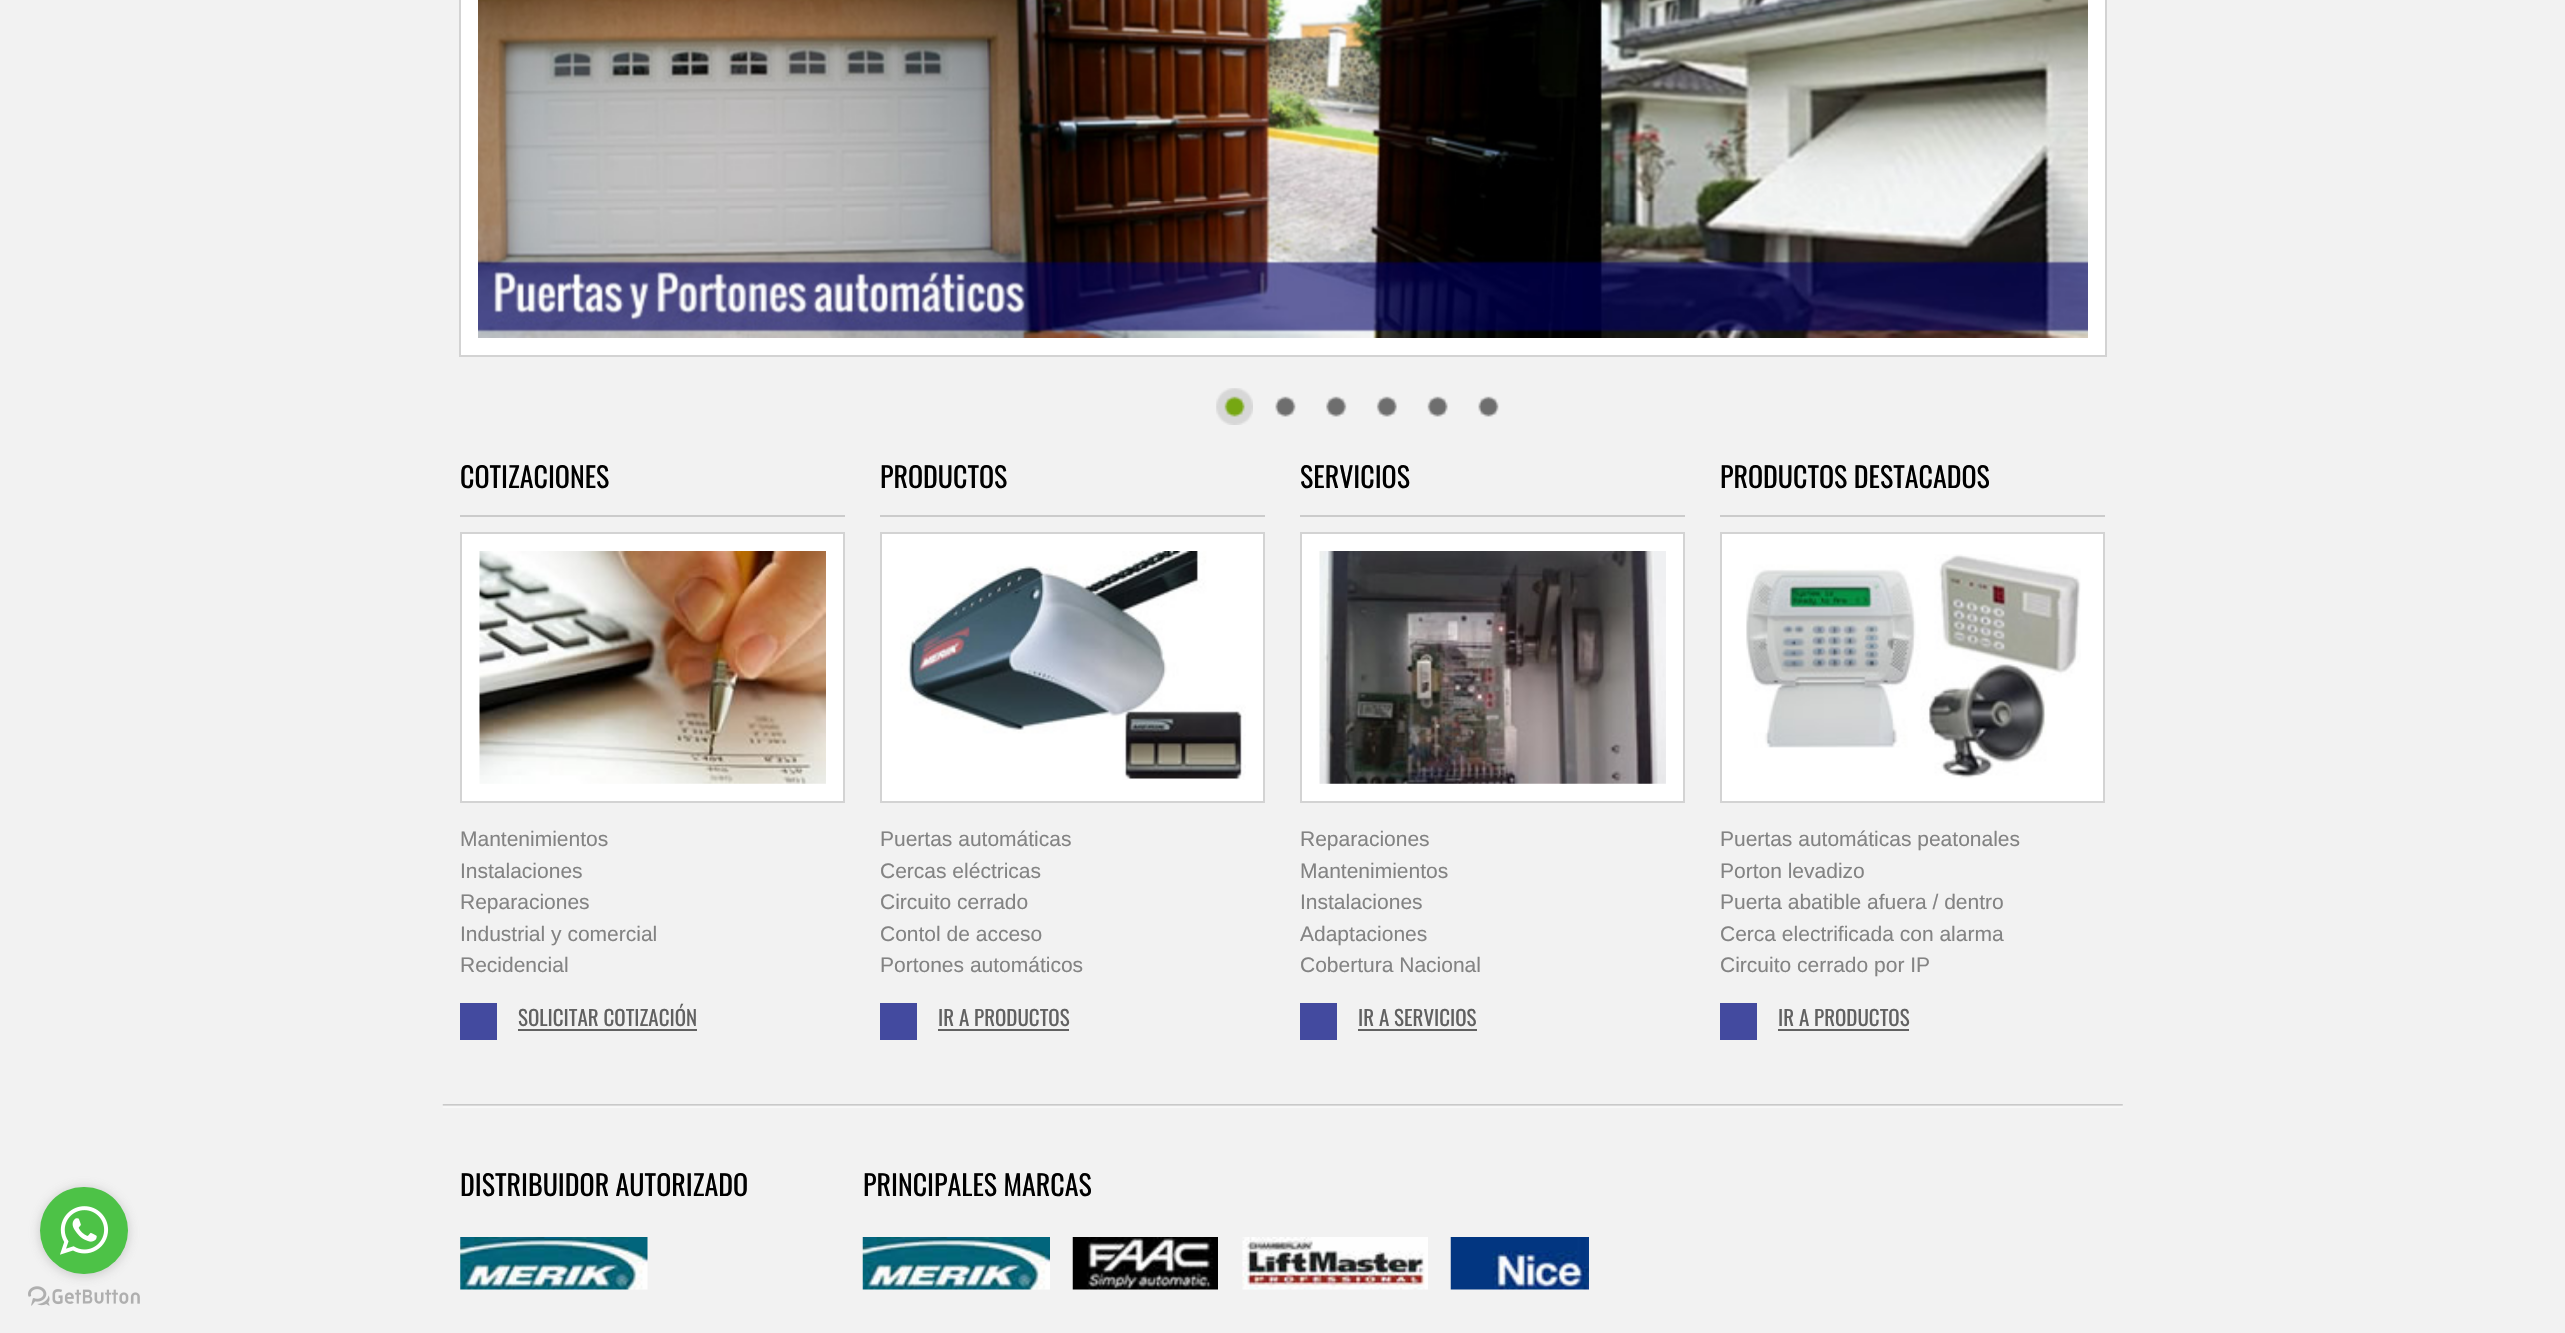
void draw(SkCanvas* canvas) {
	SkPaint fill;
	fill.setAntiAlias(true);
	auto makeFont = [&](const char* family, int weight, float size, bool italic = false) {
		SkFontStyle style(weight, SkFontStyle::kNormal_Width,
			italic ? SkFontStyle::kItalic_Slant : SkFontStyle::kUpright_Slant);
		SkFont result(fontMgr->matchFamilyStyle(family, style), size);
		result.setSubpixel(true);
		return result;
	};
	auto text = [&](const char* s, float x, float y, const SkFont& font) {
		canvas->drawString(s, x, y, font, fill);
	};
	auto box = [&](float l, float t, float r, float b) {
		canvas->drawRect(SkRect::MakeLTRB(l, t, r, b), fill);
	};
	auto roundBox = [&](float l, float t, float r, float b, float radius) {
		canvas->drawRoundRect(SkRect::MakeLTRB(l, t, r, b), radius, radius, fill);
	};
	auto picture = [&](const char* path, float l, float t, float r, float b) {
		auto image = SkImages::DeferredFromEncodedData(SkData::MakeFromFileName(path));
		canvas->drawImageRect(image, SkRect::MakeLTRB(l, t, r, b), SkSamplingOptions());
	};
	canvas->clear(0xFFF2F2F2);
	fill.setColor(0xFFFFFFFF);
	canvas->drawRect(SkRect::MakeLTRB(460, -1, 2106, 356), fill);
	fill.setStyle(SkPaint::kStroke_Style);
	fill.setStrokeWidth(2);
	fill.setColor(0xFFD3D3D3);
	canvas->drawRect(SkRect::MakeLTRB(460, -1, 2106, 356), fill);
	picture("image0.png", 478, 0, 2088, 338);
	picture("image1.png", 1216, 388, 1253, 425);
	picture("image2.png", 1275, 396, 1296, 417);
	picture("image3.png", 1326, 396, 1347, 417);
	picture("image4.png", 1376, 396, 1397, 417);
	picture("image5.png", 1427, 396, 1448, 417);
	picture("image6.png", 1478, 396, 1499, 417);
	fill.setStyle(SkPaint::kFill_Style);
	fill.setColor(0xFFCBCBCB);
	box(460, 515, 845, 517);
	fill.setColor(0xFFFFFFFF);
	canvas->drawRect(SkRect::MakeLTRB(461, 533, 844, 802), fill);
	fill.setStyle(SkPaint::kStroke_Style);
	fill.setColor(0xFFD3D3D3);
	canvas->drawRect(SkRect::MakeLTRB(461, 533, 844, 802), fill);
	picture("image7.png", 479, 551, 826, 784);
	fill.setStyle(SkPaint::kFill_Style);
	fill.setColor(0xFF434A9F);
	box(460, 1003, 497, 1040);
	fill.setColor(0xFF616161);
	box(518, 1029, 697, 1031);
	fill.setColor(0xFFCBCBCB);
	box(880, 515, 1265, 517);
	fill.setColor(0xFFFFFFFF);
	canvas->drawRect(SkRect::MakeLTRB(881, 533, 1264, 802), fill);
	fill.setStyle(SkPaint::kStroke_Style);
	fill.setColor(0xFFD3D3D3);
	canvas->drawRect(SkRect::MakeLTRB(881, 533, 1264, 802), fill);
	picture("image8.png", 900, 551, 1246, 780);
	fill.setStyle(SkPaint::kFill_Style);
	fill.setColor(0xFF434A9F);
	box(880, 1003, 917, 1040);
	fill.setColor(0xFF616161);
	box(938, 1029, 1069, 1031);
	fill.setColor(0xFFCBCBCB);
	box(1300, 515, 1685, 517);
	fill.setColor(0xFFFFFFFF);
	canvas->drawRect(SkRect::MakeLTRB(1301, 533, 1684, 802), fill);
	fill.setStyle(SkPaint::kStroke_Style);
	fill.setColor(0xFFD3D3D3);
	canvas->drawRect(SkRect::MakeLTRB(1301, 533, 1684, 802), fill);
	picture("image9.png", 1319, 551, 1666, 784);
	fill.setStyle(SkPaint::kFill_Style);
	fill.setColor(0xFF434A9F);
	box(1300, 1003, 1337, 1040);
	fill.setColor(0xFF616161);
	box(1358, 1029, 1477, 1031);
	fill.setColor(0xFFCBCBCB);
	box(1720, 515, 2105, 517);
	fill.setColor(0xFFFFFFFF);
	canvas->drawRect(SkRect::MakeLTRB(1721, 533, 2104, 802), fill);
	fill.setStyle(SkPaint::kStroke_Style);
	fill.setColor(0xFFD3D3D3);
	canvas->drawRect(SkRect::MakeLTRB(1721, 533, 2104, 802), fill);
	picture("image10.png", 1746, 554, 2081, 779);
	fill.setStyle(SkPaint::kFill_Style);
	fill.setColor(0xFF434A9F);
	box(1720, 1003, 1757, 1040);
	fill.setColor(0xFF616161);
	box(1778, 1029, 1909, 1031);
	picture("image11.png", 442, 1104, 2123, 1108);
	picture("image12.png", 460, 1237, 648, 1290);
	picture("image13.png", 862, 1237, 1050, 1290);
	picture("image14.png", 1072, 1237, 1218, 1290);
	picture("image15.png", 1242, 1237, 1428, 1290);
	picture("image16.png", 1450, 1237, 1589, 1290);
	picture("image18.png", 28, 1286, 140, 1306);
	fill.setColor(0x66888888);
	fill.setMaskFilter(SkMaskFilter::MakeBlur(kNormal_SkBlurStyle, 6));
	canvas->drawRoundRect(SkRect::MakeLTRB(40, 1188, 128, 1276), 44, 44, fill);
	fill.setMaskFilter(nullptr);
	fill.setColor(0xFF4DC247);
	roundBox(40, 1187, 128, 1274, 43.5f);
	picture("image17.png", 60, 1206, 109, 1255);
	auto font1 = makeFont("Oswald", 400, 28);
	fill.setColor(0xFF000000);
	text("COTIZACIONES", 460, 488, font1);
	auto font2 = makeFont("Liberation Sans", 400, 21);
	fill.setColor(0xFF838383);
	text("Mantenimientos", 460, 846, font2);
	text("Instalaciones", 460, 878, font2);
	text("Reparaciones", 460, 909, font2);
	text("Industrial y comercial", 460, 941, font2);
	text("Recidencial", 460, 972, font2);
	auto font3 = makeFont("Oswald", 400, 21);
	fill.setColor(0xFF616161);
	text("SOLICITAR COTIZACIÓN", 518, 1026, font3);
	fill.setColor(0xFF000000);
	text("PRODUCTOS", 880, 488, font1);
	fill.setColor(0xFF838383);
	text("Puertas automáticas", 880, 846, font2);
	text("Cercas eléctricas", 880, 878, font2);
	text("Circuito cerrado", 880, 909, font2);
	text("Contol de acceso", 880, 941, font2);
	text("Portones automáticos", 880, 972, font2);
	fill.setColor(0xFF616161);
	text("IR A PRODUCTOS", 938, 1026, font3);
	fill.setColor(0xFF000000);
	text("SERVICIOS", 1300, 488, font1);
	fill.setColor(0xFF838383);
	text("Reparaciones", 1300, 846, font2);
	text("Mantenimientos", 1300, 878, font2);
	text("Instalaciones", 1300, 909, font2);
	text("Adaptaciones", 1300, 941, font2);
	text("Cobertura Nacional", 1300, 972, font2);
	fill.setColor(0xFF616161);
	text("IR A SERVICIOS", 1358, 1026, font3);
	fill.setColor(0xFF000000);
	text("PRODUCTOS DESTACADOS", 1720, 488, font1);
	fill.setColor(0xFF838383);
	text("Puertas automáticas peatonales", 1720, 846, font2);
	text("Porton levadizo", 1720, 878, font2);
	text("Puerta abatible afuera / dentro", 1720, 909, font2);
	text("Cerca electrificada con alarma", 1720, 941, font2);
	text("Circuito cerrado por IP", 1720, 972, font2);
	fill.setColor(0xFF616161);
	text("IR A PRODUCTOS", 1778, 1026, font3);
	fill.setColor(0xFF000000);
	text("DISTRIBUIDOR AUTORIZADO", 460, 1196, font1);
	text("PRINCIPALES MARCAS", 863, 1196, font1);
}
